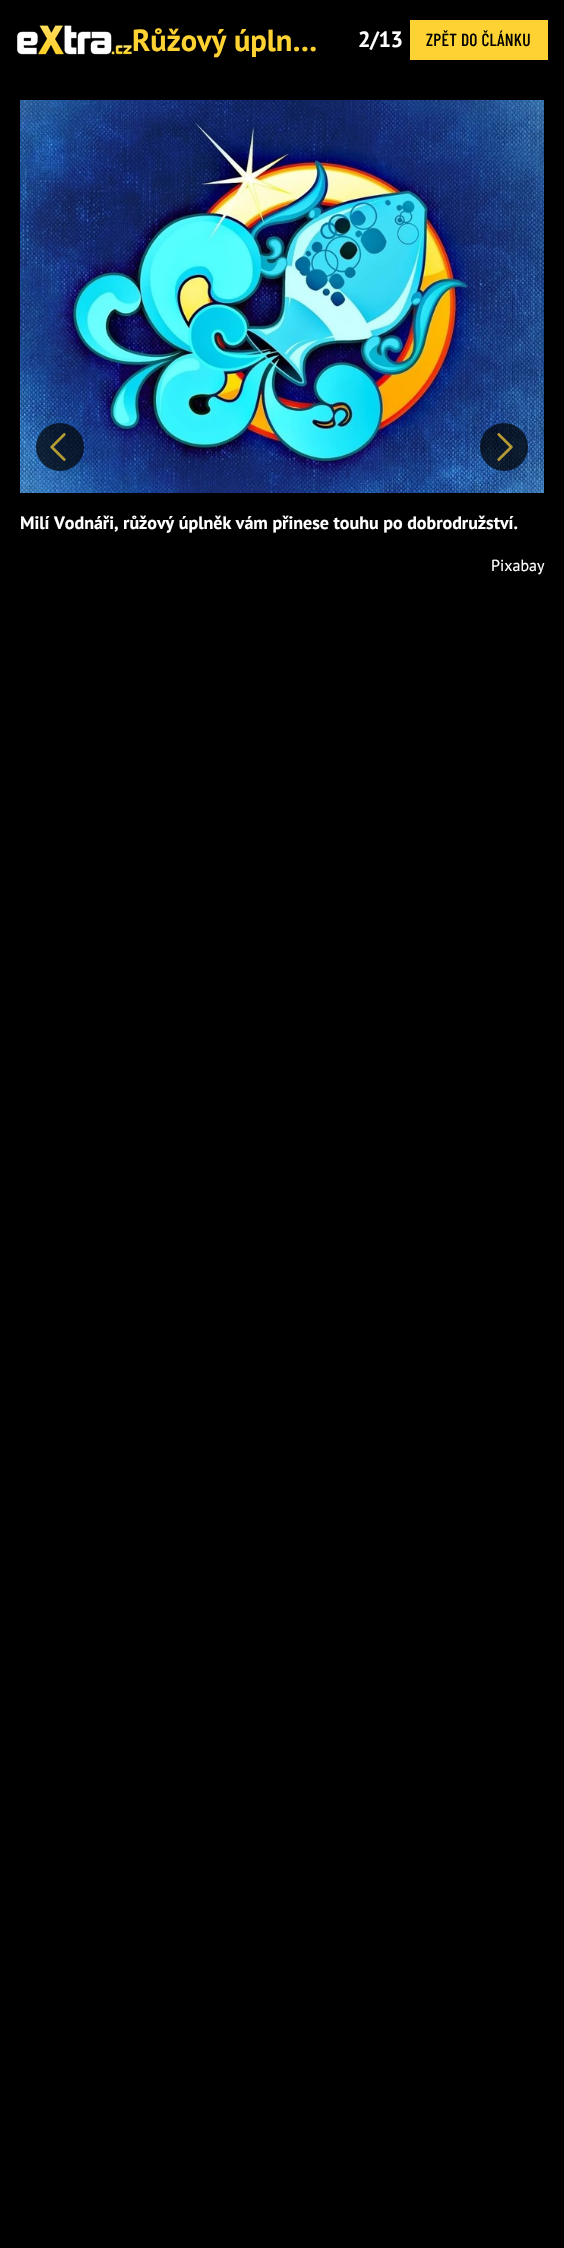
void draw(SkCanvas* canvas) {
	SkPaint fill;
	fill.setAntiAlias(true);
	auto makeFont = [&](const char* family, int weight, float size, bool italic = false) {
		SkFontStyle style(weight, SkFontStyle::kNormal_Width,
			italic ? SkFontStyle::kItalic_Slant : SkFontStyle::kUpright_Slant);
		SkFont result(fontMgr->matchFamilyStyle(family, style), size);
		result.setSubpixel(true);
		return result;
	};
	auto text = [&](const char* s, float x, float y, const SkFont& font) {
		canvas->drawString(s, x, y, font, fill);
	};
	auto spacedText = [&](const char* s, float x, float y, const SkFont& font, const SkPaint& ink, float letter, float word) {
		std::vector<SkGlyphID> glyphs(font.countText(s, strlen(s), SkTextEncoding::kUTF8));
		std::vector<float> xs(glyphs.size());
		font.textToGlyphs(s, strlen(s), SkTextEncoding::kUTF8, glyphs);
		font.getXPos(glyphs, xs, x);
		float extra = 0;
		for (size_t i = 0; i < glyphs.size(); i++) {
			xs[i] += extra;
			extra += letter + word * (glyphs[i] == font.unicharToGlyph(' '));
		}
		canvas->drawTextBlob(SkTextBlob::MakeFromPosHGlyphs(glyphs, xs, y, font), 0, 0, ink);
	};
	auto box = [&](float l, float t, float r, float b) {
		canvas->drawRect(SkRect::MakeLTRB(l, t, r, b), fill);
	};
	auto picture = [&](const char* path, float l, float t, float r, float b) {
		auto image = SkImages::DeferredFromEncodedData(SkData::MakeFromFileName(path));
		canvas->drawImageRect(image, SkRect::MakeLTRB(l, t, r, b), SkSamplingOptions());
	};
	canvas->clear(0xFF000000);
	picture("image0.png", 16, 25, 132, 55);
	fill.setColor(0xFFFED232);
	box(410, 20, 548, 60);
	picture("image1.png", 20, 100, 544, 493);
	fill.setColor(0xB3000000);
	canvas->drawCircle(60, 447, 24, fill);
	picture("image2.png", 50, 433, 66, 461);
	canvas->drawCircle(504, 447, 24, fill);
	picture("image3.png", 497, 433, 513, 461);
	auto font1 = makeFont("PT Sans", 700, 30.5f);
	fill.setColor(0xFFFED232);
	text("Růžový úpln…", 132, 51, font1);
	auto font2 = makeFont("PT Sans", 700, 22);
	fill.setColor(0xFFFFFFFF);
	spacedText("2/13", 358, 47, font2, fill, -0.5f, 0);
	auto font3 = makeFont("Barlow Condensed", 500, 17.5f);
	fill.setColor(0xFF000000);
	spacedText("ZPĚT DO ČLÁNKU", 426, 46, font3, fill, 0.25f, 0);
	auto font4 = makeFont("PT Sans", 700, 18);
	fill.setColor(0xFFFFFFFF);
	text("Milí Vodnáři, růžový úplněk vám přinese touhu po dobrodružství.", 20, 529, font4);
	auto font5 = makeFont("PT Sans", 400, 16);
	text("Pixabay", 491, 571, font5);
}
